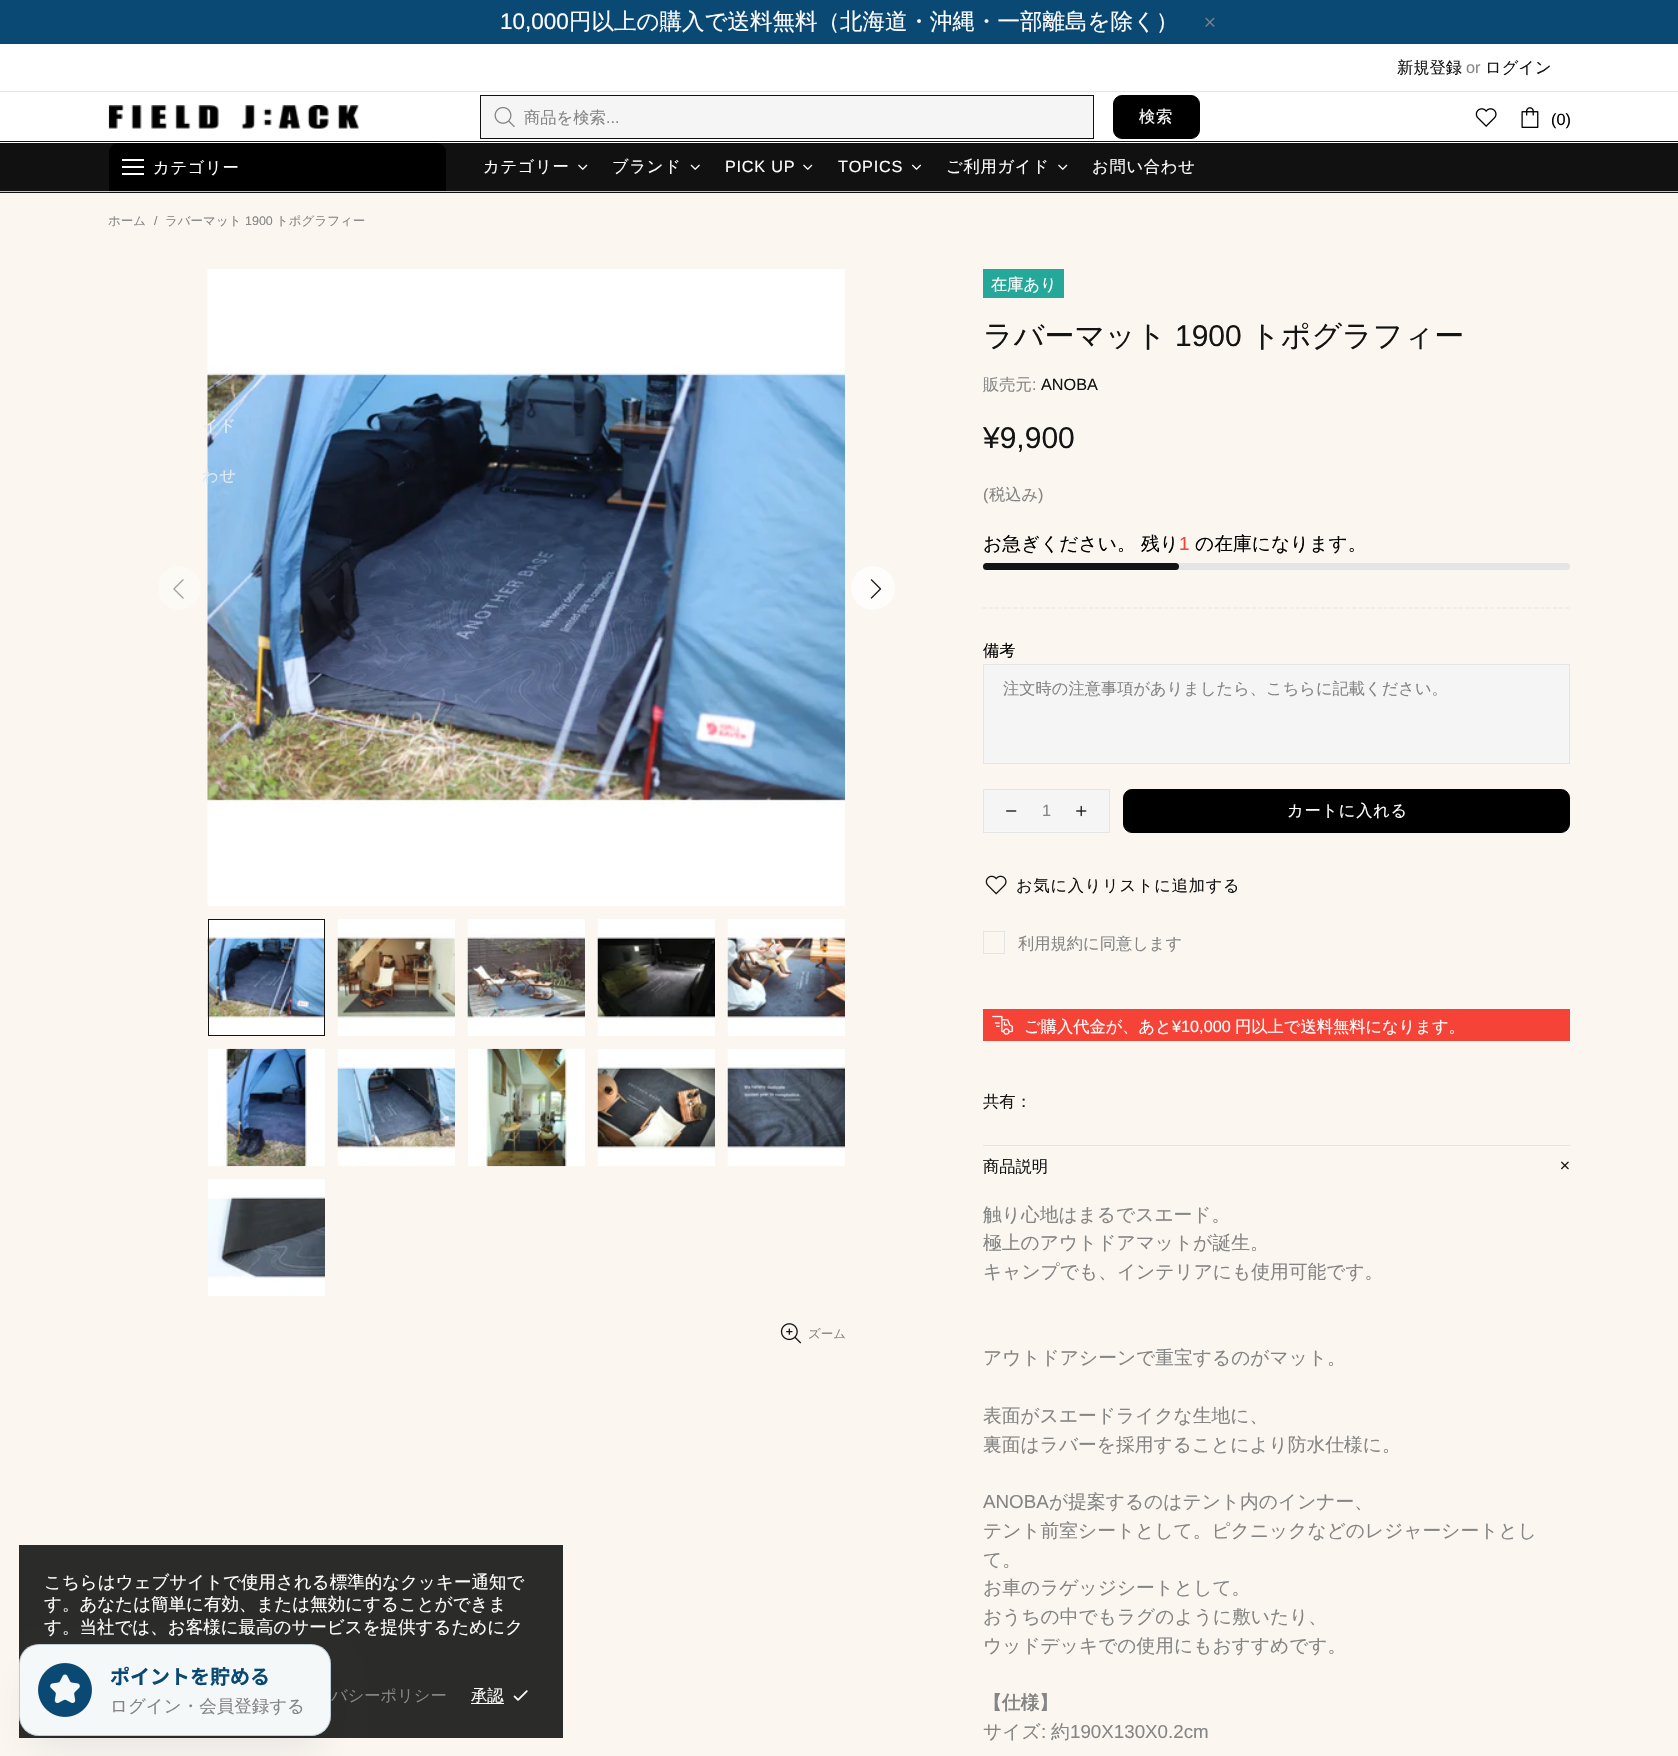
void draw(SkCanvas* canvas) {
	SkPaint fill;
	fill.setAntiAlias(true);
	auto makeFont = [&](const char* family, int weight, float size, bool italic = false) {
		SkFontStyle style(weight, SkFontStyle::kNormal_Width,
			italic ? SkFontStyle::kItalic_Slant : SkFontStyle::kUpright_Slant);
		SkFont result(fontMgr->matchFamilyStyle(family, style), size);
		result.setSubpixel(true);
		return result;
	};
	auto text = [&](const char* s, float x, float y, const SkFont& font) {
		canvas->drawString(s, x, y, font, fill);
	};
	auto spacedText = [&](const char* s, float x, float y, const SkFont& font, const SkPaint& ink, float letter, float word) {
		std::vector<SkGlyphID> glyphs(font.countText(s, strlen(s), SkTextEncoding::kUTF8));
		std::vector<float> xs(glyphs.size());
		font.textToGlyphs(s, strlen(s), SkTextEncoding::kUTF8, glyphs);
		font.getXPos(glyphs, xs, x);
		float extra = 0;
		for (size_t i = 0; i < glyphs.size(); i++) {
			xs[i] += extra;
			extra += letter + word * (glyphs[i] == font.unicharToGlyph(' '));
		}
		canvas->drawTextBlob(SkTextBlob::MakeFromPosHGlyphs(glyphs, xs, y, font), 0, 0, ink);
	};
	auto box = [&](float l, float t, float r, float b) {
		canvas->drawRect(SkRect::MakeLTRB(l, t, r, b), fill);
	};
	auto roundBox = [&](float l, float t, float r, float b, float radius) {
		canvas->drawRoundRect(SkRect::MakeLTRB(l, t, r, b), radius, radius, fill);
	};
	auto picture = [&](const char* path, float l, float t, float r, float b) {
		auto image = SkImages::DeferredFromEncodedData(SkData::MakeFromFileName(path));
		canvas->drawImageRect(image, SkRect::MakeLTRB(l, t, r, b), SkSamplingOptions());
	};
	canvas->clear(0xFFFBF7F0);
	fill.setColor(0xFF0A4973);
	box(0, 0, 1678, 44);
	picture("image0.png", 1205, 17, 1215, 27);
	fill.setColor(0xFFFFFFFF);
	box(0, 44, 1678, 143);
	fill.setColor(0xFFE5E5E5);
	box(0, 91, 1678, 92);
	fill.setColor(0xFF111112);
	box(0, 141, 1678, 142);
	picture("image1.png", 108, 105, 359, 129);
	fill.setColor(0xFFF5F5F5);
	canvas->drawRect(SkRect::MakeLTRB(480.5f, 95.5f, 1093.5f, 138.5f), fill);
	fill.setStyle(SkPaint::kStroke_Style);
	fill.setStrokeWidth(1);
	fill.setColor(0xFF111112);
	canvas->drawRect(SkRect::MakeLTRB(480.5f, 95.5f, 1093.5f, 138.5f), fill);
	picture("image2.png", 494, 107, 515, 127);
	fill.setStyle(SkPaint::kFill_Style);
	fill.setColor(0xFF000000);
	canvas->drawRoundRect(SkRect::MakeLTRB(1113.5f, 95.5f, 1199.5f, 138.5f), 8.5f, 8.5f, fill);
	fill.setStyle(SkPaint::kStroke_Style);
	canvas->drawRoundRect(SkRect::MakeLTRB(1113.5f, 95.5f, 1199.5f, 138.5f), 8.5f, 8.5f, fill);
	picture("image3.png", 1475, 108, 1497, 127);
	picture("image4.png", 1521, 107, 1539, 128);
	fill.setStyle(SkPaint::kFill_Style);
	fill.setColor(0xFF111112);
	box(0, 143, 1678, 193);
	fill.setColor(0xFFDFDB19);
	box(0, 191, 1678, 192);
	fill.setColor(0xFF000000);
	canvas->drawPath(SkPathBuilder().moveTo(118, 143).lineTo(437, 143).cubicTo(442, 143, 446, 147, 446, 152).lineTo(446, 191).lineTo(109, 191).lineTo(109, 152).cubicTo(109, 147, 113, 143, 118, 143).close().detach(), fill);
	fill.setColor(0xFFFFFFFF);
	box(122, 159, 144, 161);
	box(122, 166, 144, 168);
	box(122, 173, 144, 175);
	picture("image5.png", 578, 164, 588, 170);
	picture("image6.png", 690, 164, 700, 170);
	picture("image5.png", 803, 164, 813, 170);
	picture("image7.png", 912, 164, 921, 170);
	picture("image5.png", 1058, 164, 1068, 170);
	picture("image8.png", 207, 269, 845, 906);
	fill.setColor(0xFFFCFAF5);
	roundBox(158, 566, 201, 610, 21.5f);
	picture("image9.png", 173, 579, 184, 599);
	fill.setColor(0xFFFEFDFC);
	canvas->drawCircle(873, 588, 22, fill);
	picture("image10.png", 870, 579, 882, 599);
	picture("image11.png", 207, 919, 324, 1036);
	fill.setStyle(SkPaint::kStroke_Style);
	fill.setColor(0xFF141414);
	canvas->drawRect(SkRect::MakeLTRB(208.5f, 919.5f, 324.5f, 1035.5f), fill);
	picture("image12.png", 337, 919, 455, 1036);
	picture("image13.png", 467, 919, 585, 1036);
	picture("image14.png", 597, 919, 715, 1036);
	picture("image15.png", 727, 919, 845, 1036);
	picture("image16.png", 208, 1048, 325, 1167);
	picture("image17.png", 337, 1049, 455, 1166);
	picture("image18.png", 468, 1048, 585, 1167);
	picture("image19.png", 597, 1049, 715, 1166);
	picture("image20.png", 727, 1049, 845, 1166);
	picture("image21.png", 208, 1179, 325, 1296);
	picture("image22.png", 780, 1323, 801, 1344);
	fill.setStyle(SkPaint::kFill_Style);
	fill.setColor(0xFF25A799);
	box(983, 269, 1064, 298);
	fill.setColor(0xFFE5E5E5);
	roundBox(983, 563, 1570, 570, 3.5f);
	fill.setColor(0xFF141414);
	roundBox(983, 563, 1179, 570, 3.5f);
	fill.setStyle(SkPaint::kStroke_Style);
	fill.setStrokeWidth(1.2f);
	fill.setColor(0xFFE5E5E5);
	fill.setPathEffect(SkDashPathEffect::Make({{3.75f, 2.52f}}, 0));
	canvas->drawPath(SkPathBuilder().moveTo(982.5f, 608).lineTo(1570, 608).detach(), fill);
	fill.setPathEffect(nullptr);
	fill.setStyle(SkPaint::kFill_Style);
	fill.setColor(0xFFF5F5F5);
	canvas->drawRect(SkRect::MakeLTRB(983.5f, 664.5f, 1569.5f, 763.5f), fill);
	fill.setStyle(SkPaint::kStroke_Style);
	fill.setStrokeWidth(1);
	fill.setColor(0xFFE5E5E5);
	canvas->drawRect(SkRect::MakeLTRB(983.5f, 664.5f, 1569.5f, 763.5f), fill);
	fill.setStyle(SkPaint::kFill_Style);
	fill.setColor(0xFFF5F5F5);
	box(984, 790, 1109, 831);
	fill.setStyle(SkPaint::kStroke_Style);
	fill.setColor(0xFFE5E5E5);
	canvas->drawRect(SkRect::MakeLTRB(983.5f, 789.5f, 1109.5f, 832.5f), fill);
	picture("image23.png", 1006, 810, 1017, 812);
	picture("image24.png", 1076, 805, 1087, 817);
	fill.setStyle(SkPaint::kFill_Style);
	fill.setColor(0xFF000000);
	canvas->drawRoundRect(SkRect::MakeLTRB(1123.5f, 789.5f, 1569.5f, 832.5f), 8.5f, 8.5f, fill);
	fill.setStyle(SkPaint::kStroke_Style);
	canvas->drawRoundRect(SkRect::MakeLTRB(1123.5f, 789.5f, 1569.5f, 832.5f), 8.5f, 8.5f, fill);
	picture("image25.png", 985, 875, 1007, 895);
	fill.setColor(0xFFE5E5E5);
	canvas->drawRect(SkRect::MakeLTRB(983.5f, 931.5f, 1004.5f, 953.5f), fill);
	fill.setStyle(SkPaint::kFill_Style);
	fill.setColor(0xFFF54337);
	box(983, 1009, 1570, 1041);
	picture("image26.png", 992, 1015, 1013, 1035);
	fill.setColor(0xFFE5E5E5);
	box(983, 1145, 1570, 1146);
	picture("image27.png", 1561, 1161, 1569, 1170);
	fill.setColor(0xFF2B2B2A);
	box(19, 1545, 563, 1738);
	fill.setColor(0xFFFFFFFF);
	box(471, 1703, 504, 1704);
	picture("image28.png", 513, 1690, 528, 1701);
	fill.setColor(0x1A111826);
	fill.setMaskFilter(SkMaskFilter::MakeBlur(kNormal_SkBlurStyle, 20));
	canvas->drawRoundRect(SkRect::MakeLTRB(31, 1676, 319, 1744), 8, 8, fill);
	fill.setMaskFilter(nullptr);
	auto font1 = makeFont("Arimo", 400, 22.5f);
	fill.setColor(0xFFFFFFFF);
	text("10,000", 500, 29, font1);
	auto font2 = makeFont("WenQuanYi Zen Hei", 500, 22.5f);
	text("円以上の購入で送料無料（北海道・沖縄・一部離島を除く）", 569, 29, font2);
	auto font3 = makeFont("WenQuanYi Zen Hei", 500, 16.25f);
	fill.setColor(0xFF141414);
	text("新規登録", 1397, 73, font3);
	auto font4 = makeFont("Arimo", 400, 16.25f);
	fill.setColor(0xFF858585);
	text("or", 1466, 73, font4);
	fill.setColor(0xFF141414);
	text("ログイン", 1485, 73, font3);
	fill.setColor(0xFF858585);
	text("商品を検索", 524, 123, font3);
	text("...", 606, 123, font4);
	fill.setColor(0xFFFFFFFF);
	spacedText("検索", 1139, 122, font3, fill, 0.75f, 0);
	fill.setColor(0xFF000000);
	text("(0)", 1551, 125, font4);
	fill.setColor(0xFFFFFFFF);
	spacedText("カテゴリー", 153, 173, font3, fill, 0.75f, 0);
	fill.setColor(0xFFEBEEEF);
	spacedText("イド", 202, 431, font3, fill, 0.75f, 0);
	fill.setColor(0xFFE1EAEF);
	spacedText("わせ", 202, 481, font3, fill, 0.75f, 0);
	fill.setColor(0xFFFFFFFF);
	spacedText("カテゴリー", 483, 172, font3, fill, 0.75f, 0);
	spacedText("ブランド", 612, 172, font3, fill, 0.75f, 0);
	spacedText("PICK UP", 725, 172, font4, fill, 0.75f, 0);
	spacedText("TOPICS", 838, 172, font4, fill, 0.75f, 0);
	spacedText("ご利用ガイド", 946, 172, font3, fill, 0.75f, 0);
	spacedText("お問い合わせ", 1092, 172, font3, fill, 0.75f, 0);
	auto font5 = makeFont("WenQuanYi Zen Hei", 500, 12.5f);
	fill.setColor(0xFF858585);
	text("ホーム", 108, 225, font5);
	auto font6 = makeFont("Arimo", 400, 12.5f);
	text("/", 154, 225, font6);
	text("ラバーマット", 165, 225, font5);
	text("1900", 245, 225, font6);
	text("トポグラフィー", 276, 225, font5);
	text("ズーム", 808, 1338, font5);
	fill.setColor(0xFFFFFFFF);
	text("在庫あり", 991, 290, font3);
	auto font7 = makeFont("WenQuanYi Zen Hei", 500, 30);
	fill.setColor(0xFF141414);
	text("ラバーマット", 983, 346, font7);
	auto font8 = makeFont("Arimo", 400, 30);
	text("1900", 1175, 346, font8);
	text("トポグラフィー", 1250, 346, font7);
	fill.setColor(0xFF858585);
	text("販売元", 983, 390, font3);
	text(":", 1032, 390, font4);
	fill.setColor(0xFF141414);
	text("ANOBA", 1041, 390, font4);
	text("¥9,900", 983, 448, font8);
	fill.setColor(0xFF858585);
	text("(", 983, 500, font4);
	text("税込み", 989, 500, font3);
	text(")", 1038, 500, font4);
	auto font9 = makeFont("WenQuanYi Zen Hei", 500, 18.75f);
	fill.setColor(0xFF000000);
	text("お急ぎください。", 983, 550, font9);
	text("残り", 1141, 550, font9);
	auto font10 = makeFont("Arimo", 400, 18.75f);
	fill.setColor(0xFFF54337);
	text("1", 1179, 550, font10);
	fill.setColor(0xFF000000);
	text("の在庫になります。", 1195, 550, font9);
	text("備考", 983, 656, font3);
	fill.setColor(0xFF858585);
	text("注文時の注意事項がありましたら、こちらに記載ください。", 1003, 694, font3);
	text("1", 1042, 816, font4);
	fill.setColor(0xFFFFFFFF);
	spacedText("カートに入れる", 1287, 816, font3, fill, 0.75f, 0);
	fill.setColor(0xFF141414);
	spacedText("お気に入りリストに追加する", 1016, 891, font3, fill, 0.75f, 0);
	fill.setColor(0xFF858585);
	text("利用規約に同意します", 1018, 949, font3);
	fill.setColor(0xFFFFFFFF);
	text("ご購入代金が、あと", 1024, 1032, font3);
	text("¥10,000", 1172, 1032, font4);
	text("円以上で送料無料になります。", 1235, 1032, font3);
	fill.setColor(0xFF141414);
	text("共有：", 983, 1107, font3);
	text("商品説明", 983, 1172, font3);
	fill.setColor(0xFF858585);
	text("触り心地はまるでスエード。", 983, 1221, font9);
	text("極上のアウトドアマットが誕生。", 983, 1249, font9);
	text("キャンプでも、インテリアにも使用可能です。", 983, 1278, font9);
	text("アウトドアシーンで重宝するのがマット。", 983, 1364, font9);
	text("表面がスエードライクな生地に、", 983, 1422, font9);
	text("裏面はラバーを採用することにより防水仕様に。", 983, 1451, font9);
	text("ANOBA", 983, 1508, font10);
	text("が提案するのはテント内のインナー、", 1049, 1508, font9);
	text("テント前室シートとして。ピクニックなどのレジャーシートとし", 983, 1537, font9);
	text("て。", 983, 1566, font9);
	text("お車のラゲッジシートとして。", 983, 1594, font9);
	text("おうちの中でもラグのように敷いたり、", 983, 1623, font9);
	text("ウッドデッキでの使用にもおすすめです。", 983, 1652, font9);
	auto font11 = makeFont("WenQuanYi Zen Hei", 700, 18.75f);
	text("【仕様】", 983, 1709, font11);
	text("サイズ", 983, 1738, font9);
	text(":", 1041, 1738, font10);
	text("約", 1051, 1738, font9);
	text("190X130X0.2cm", 1070, 1738, font10);
	auto font12 = makeFont("WenQuanYi Zen Hei", 500, 17.5f);
	fill.setColor(0xFFFFFFFF);
	text("こちらはウェブサイトで使用される標準的なクッキー通知で", 44, 1588, font12);
	text("す。あなたは簡単に有効、または無効にすることができま", 44, 1610, font12);
	text("す。当社では、お客様に最高のサービスを提供するためにク", 44, 1633, font12);
	fill.setColor(0xFF858585);
	text("バシーポリシー", 331, 1701, font3);
	fill.setColor(0xFFFFFFFF);
	text("承認", 471, 1701, font3);
	fill.setColor(0xFFF5F8F9);
	roundBox(19, 1644, 331, 1736, 20);
	fill.setStyle(SkPaint::kStroke_Style);
	fill.setColor(0x400A4973);
	canvas->drawRoundRect(SkRect::MakeLTRB(19.5f, 1644.5f, 330.5f, 1735.5f), 19.5f, 19.5f, fill);
	picture("image29.png", 38, 1663, 92, 1717);
	auto font13 = makeFont("Noto Sans JP", 700, 20);
	fill.setStyle(SkPaint::kFill_Style);
	fill.setColor(0xFF0A4973);
	text("ポイントを貯める", 110, 1684, font13);
	fill.setColor(0xFF858585);
	text("ログイン・会員登録する", 110, 1712, font12);
}
